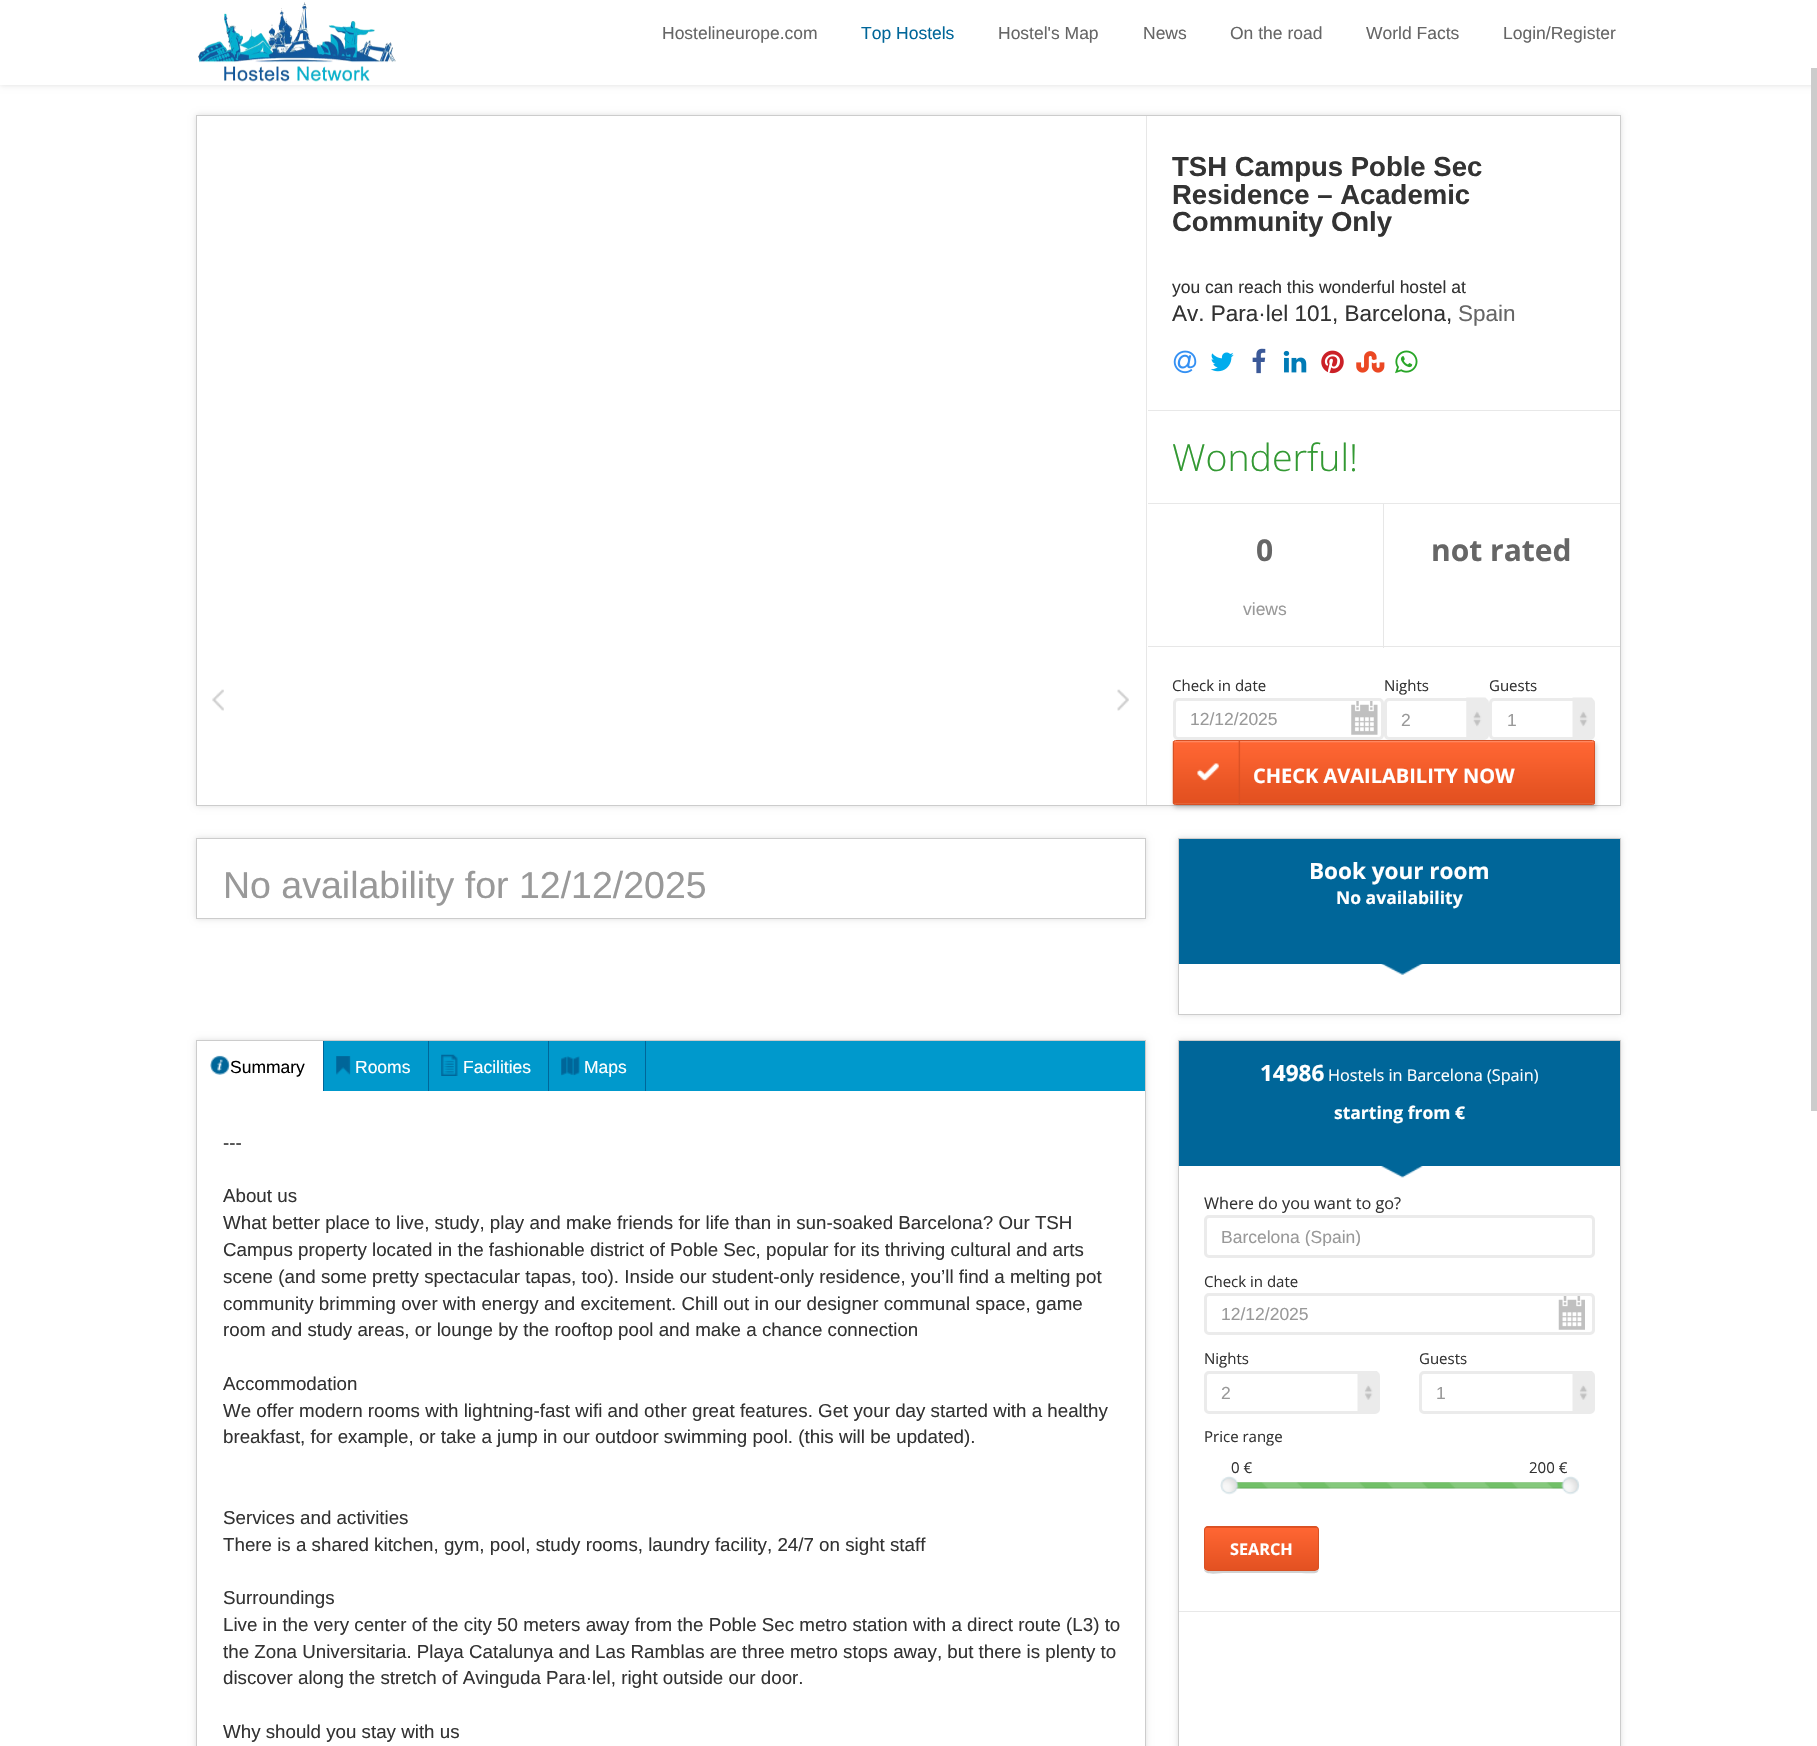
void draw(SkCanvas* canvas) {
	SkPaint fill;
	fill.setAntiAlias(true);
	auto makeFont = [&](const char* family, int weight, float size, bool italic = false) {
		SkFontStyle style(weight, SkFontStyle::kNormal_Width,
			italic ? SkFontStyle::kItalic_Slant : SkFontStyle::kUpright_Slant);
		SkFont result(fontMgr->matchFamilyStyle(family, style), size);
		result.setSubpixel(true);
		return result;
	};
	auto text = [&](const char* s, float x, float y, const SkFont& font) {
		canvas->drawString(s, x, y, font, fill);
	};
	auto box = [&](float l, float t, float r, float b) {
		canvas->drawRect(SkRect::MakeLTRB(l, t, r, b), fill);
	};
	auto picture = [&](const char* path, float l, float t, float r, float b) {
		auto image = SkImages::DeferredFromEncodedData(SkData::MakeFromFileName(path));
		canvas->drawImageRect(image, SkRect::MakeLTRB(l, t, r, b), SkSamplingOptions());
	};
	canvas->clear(0xFFFFFFFF);
	fill.setColor(0x21000000);
	fill.setMaskFilter(SkMaskFilter::MakeBlur(kNormal_SkBlurStyle, 3));
	canvas->drawRect(SkRect::MakeLTRB(0, 0, 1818, 85), fill);
	fill.setMaskFilter(nullptr);
	fill.setColor(0xFFFFFFFF);
	box(0, 0, 1817, 85);
	picture("image0.png", 198, 2, 396, 82);
	fill.setColor(0x21000000);
	fill.setMaskFilter(SkMaskFilter::MakeBlur(kNormal_SkBlurStyle, 3));
	canvas->drawRect(SkRect::MakeLTRB(196, 115, 1621, 806), fill);
	fill.setMaskFilter(nullptr);
	fill.setColor(0xFFFFFFFF);
	canvas->drawRect(SkRect::MakeLTRB(196.5f, 115.5f, 1620.5f, 805.5f), fill);
	fill.setStyle(SkPaint::kStroke_Style);
	fill.setStrokeWidth(1);
	fill.setColor(0xFFCCCCCC);
	canvas->drawRect(SkRect::MakeLTRB(196.5f, 115.5f, 1620.5f, 805.5f), fill);
	picture("image1.png", 212, 689, 224, 711);
	picture("image2.png", 1117, 689, 1129, 711);
	fill.setStyle(SkPaint::kFill_Style);
	fill.setColor(0xFFE7E7E7);
	box(1146, 116, 1147, 805);
	picture("image3.png", 1173, 350, 1197, 374);
	picture("image4.png", 1210, 352, 1234, 372);
	picture("image5.png", 1252, 348, 1266, 374);
	picture("image6.png", 1283, 350, 1307, 373);
	picture("image7.png", 1321, 350, 1344, 374);
	picture("image8.png", 1356, 351, 1385, 373);
	picture("image9.png", 1395, 350, 1418, 374);
	fill.setColor(0xFFE8E8E8);
	box(1148, 410, 1620, 411);
	box(1148, 503, 1620, 504);
	fill.setColor(0xFFE7E7E7);
	box(1383, 504, 1384, 648);
	box(1148, 646, 1620, 647);
	picture("image10.png", 1351, 701, 1378, 735);
	fill.setColor(0x33000000);
	fill.setMaskFilter(SkMaskFilter::MakeBlur(kNormal_SkBlurStyle, 2));
	canvas->drawRoundRect(SkRect::MakeLTRB(1174, 743, 1596, 808), 2.5f, 2.5f, fill);
	fill.setMaskFilter(nullptr);
	fill.setStyle(SkPaint::kStroke_Style);
	fill.setStrokeWidth(3);
	fill.setColor(0xFFEBEBEB);
	canvas->drawRoundRect(SkRect::MakeLTRB(1174.5f, 699.5f, 1382.5f, 738.5f), 3.5f, 3.5f, fill);
	picture("image11.png", 1466, 697, 1487, 740);
	canvas->drawRoundRect(SkRect::MakeLTRB(1385.5f, 699.5f, 1487.5f, 738.5f), 3.5f, 3.5f, fill);
	picture("image12.png", 1572, 697, 1593, 740);
	canvas->drawRoundRect(SkRect::MakeLTRB(1490.5f, 699.5f, 1593.5f, 738.5f), 3.5f, 3.5f, fill);
	picture("image13.png", 1172, 741, 1595, 805);
	fill.setStrokeWidth(1);
	fill.setColor(0xFFD75124);
	canvas->drawRoundRect(SkRect::MakeLTRB(1173.5f, 740.5f, 1594.5f, 804.5f), 2, 2, fill);
	fill.setStyle(SkPaint::kFill_Style);
	fill.setColor(0x21000000);
	fill.setMaskFilter(SkMaskFilter::MakeBlur(kNormal_SkBlurStyle, 3));
	canvas->drawRect(SkRect::MakeLTRB(196, 838, 1146, 919), fill);
	fill.setMaskFilter(nullptr);
	fill.setColor(0xFFFFFFFF);
	canvas->drawRect(SkRect::MakeLTRB(196.5f, 838.5f, 1145.5f, 918.5f), fill);
	fill.setStyle(SkPaint::kStroke_Style);
	fill.setColor(0xFFCCCCCC);
	canvas->drawRect(SkRect::MakeLTRB(196.5f, 838.5f, 1145.5f, 918.5f), fill);
	canvas->save();
	canvas->clipPath(SkPathBuilder(SkPathFillType::kEvenOdd).moveTo(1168, 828).lineTo(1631, 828).lineTo(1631, 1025).lineTo(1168, 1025).close().moveTo(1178, 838).lineTo(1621, 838).lineTo(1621, 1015).lineTo(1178, 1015).close().detach(), true);
	fill.setStyle(SkPaint::kFill_Style);
	fill.setColor(0x21000000);
	fill.setMaskFilter(SkMaskFilter::MakeBlur(kNormal_SkBlurStyle, 3));
	canvas->drawRect(SkRect::MakeLTRB(1178, 838, 1621, 1015), fill);
	fill.setMaskFilter(nullptr);
	canvas->restore();
	fill.setStyle(SkPaint::kStroke_Style);
	fill.setColor(0xFFCCCCCC);
	canvas->drawRect(SkRect::MakeLTRB(1178.5f, 838.5f, 1620.5f, 1014.5f), fill);
	fill.setStyle(SkPaint::kFill_Style);
	fill.setColor(0xFF006699);
	box(1179, 839, 1620, 964);
	picture("image14.png", 1381, 964, 1423, 975);
	fill.setColor(0x21000000);
	fill.setMaskFilter(SkMaskFilter::MakeBlur(kNormal_SkBlurStyle, 3));
	canvas->drawRect(SkRect::MakeLTRB(196, 1040, 1146, 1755), fill);
	fill.setMaskFilter(nullptr);
	fill.setColor(0xFFFFFFFF);
	canvas->drawRect(SkRect::MakeLTRB(196.5f, 1040.5f, 1145.5f, 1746.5f), fill);
	fill.setStyle(SkPaint::kStroke_Style);
	fill.setColor(0xFFCCCCCC);
	canvas->drawRect(SkRect::MakeLTRB(196.5f, 1040.5f, 1145.5f, 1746.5f), fill);
	fill.setStyle(SkPaint::kFill_Style);
	fill.setColor(0xFF0099CC);
	box(324, 1041, 1145, 1091);
	fill.setColor(0xFF006699);
	box(323, 1041, 324, 1091);
	picture("image15.png", 210, 1055, 230, 1075);
	box(428, 1041, 429, 1091);
	picture("image16.png", 336, 1056, 351, 1075);
	box(548, 1041, 549, 1091);
	picture("image17.png", 441, 1054, 458, 1076);
	box(645, 1041, 646, 1091);
	picture("image18.png", 561, 1056, 580, 1076);
	canvas->save();
	canvas->clipPath(SkPathBuilder(SkPathFillType::kEvenOdd).moveTo(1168, 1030).lineTo(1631, 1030).lineTo(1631, 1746).lineTo(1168, 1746).close().moveTo(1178, 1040).lineTo(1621, 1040).lineTo(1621, 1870).lineTo(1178, 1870).close().detach(), true);
	fill.setColor(0x21000000);
	fill.setMaskFilter(SkMaskFilter::MakeBlur(kNormal_SkBlurStyle, 3));
	canvas->drawRect(SkRect::MakeLTRB(1178, 1040, 1621, 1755), fill);
	fill.setMaskFilter(nullptr);
	canvas->restore();
	fill.setStyle(SkPaint::kStroke_Style);
	fill.setColor(0xFFCCCCCC);
	canvas->drawRect(SkRect::MakeLTRB(1178.5f, 1040.5f, 1620.5f, 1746.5f), fill);
	fill.setStyle(SkPaint::kFill_Style);
	fill.setColor(0xFF006699);
	box(1179, 1041, 1620, 1166);
	picture("image19.png", 1381, 1166, 1423, 1178);
	fill.setStyle(SkPaint::kStroke_Style);
	fill.setStrokeWidth(3);
	fill.setColor(0xFFEBEBEB);
	canvas->drawRoundRect(SkRect::MakeLTRB(1205.5f, 1216.5f, 1593.5f, 1256.5f), 3.5f, 3.5f, fill);
	picture("image20.png", 1558, 1296, 1585, 1330);
	canvas->drawRoundRect(SkRect::MakeLTRB(1205.5f, 1294.5f, 1593.5f, 1333.5f), 3.5f, 3.5f, fill);
	picture("image21.png", 1357, 1371, 1378, 1411);
	canvas->drawRoundRect(SkRect::MakeLTRB(1205.5f, 1372.5f, 1378.5f, 1412.5f), 3.5f, 3.5f, fill);
	picture("image21.png", 1572, 1371, 1593, 1411);
	canvas->drawRoundRect(SkRect::MakeLTRB(1420.5f, 1372.5f, 1593.5f, 1412.5f), 3.5f, 3.5f, fill);
	picture("image23.png", 1236, 1482, 1263, 1489);
	picture("image25.png", 1262, 1482, 1537, 1489);
	picture("image26.png", 1536, 1482, 1564, 1489);
	picture("image24.png", 1236, 1482, 1564, 1489);
	picture("image22.png", 1220, 1476, 1239, 1495);
	picture("image27.png", 1561, 1476, 1580, 1495);
	fill.setStyle(SkPaint::kFill_Style);
	fill.setColor(0xFFD1D1D1);
	canvas->drawPath(SkPathBuilder().moveTo(1204, 1569).cubicTo(1204, 1576, 1218, 1573, 1226, 1573).lineTo(1297, 1573).cubicTo(1321, 1573, 1319, 1577, 1319, 1557).lineTo(1319, 1531).lineTo(1319, 1568).cubicTo(1319, 1570, 1317, 1571, 1315, 1571).lineTo(1208, 1571).cubicTo(1206, 1571, 1205, 1570, 1204, 1569).close().detach(), fill);
	canvas->save();
	canvas->clipPath(SkPathBuilder().moveTo(1208, 1526).lineTo(1315, 1526).cubicTo(1317, 1526, 1319, 1528, 1319, 1530).lineTo(1319, 1567).cubicTo(1319, 1569, 1317, 1571, 1315, 1571).lineTo(1208, 1571).cubicTo(1206, 1571, 1204, 1569, 1204, 1567).lineTo(1204, 1530).cubicTo(1204, 1528, 1206, 1526, 1208, 1526).close().detach(), true);
	{
		const SkColor colors[] = {0xFFFF6633, 0xFFE35121};
		const float stops[] = {0, 1};
		const SkPoint ends[] = {{1261, 1485}, {1261, 1528}};
		fill.setShader(SkGradientShader::MakeLinear(ends, colors, stops, 2, SkTileMode::kClamp));
		fill.setAlpha(255);
	}
	box(1204, 1526, 1319, 1528);
	{
		const SkColor colors[] = {0xFFFF6633, 0xFFE35121};
		const float stops[] = {0, 1};
		const SkPoint ends[] = {{1261, 1528}, {1261, 1570}};
		fill.setShader(SkGradientShader::MakeLinear(ends, colors, stops, 2, SkTileMode::kClamp));
		fill.setAlpha(255);
	}
	box(1204, 1528, 1319, 1570);
	canvas->restore();
	fill.setStyle(SkPaint::kStroke_Style);
	fill.setStrokeWidth(1);
	fill.setShader(nullptr);
	fill.setColor(0xFFD75124);
	canvas->drawRoundRect(SkRect::MakeLTRB(1204.5f, 1526.5f, 1318.5f, 1570.5f), 3.5f, 3.5f, fill);
	fill.setStyle(SkPaint::kFill_Style);
	fill.setColor(0xFFE8E8E8);
	box(1179, 1611, 1620, 1612);
	fill.setColor(0xFFCCCCCC);
	box(1811, 68, 1817, 1111);
	auto font1 = makeFont("Liberation Sans", 400, 17.5f);
	fill.setColor(0xFF666666);
	text("Hostelineurope.com", 662, 39, font1);
	fill.setColor(0xFF006699);
	text("Top Hostels", 861, 39, font1);
	fill.setColor(0xFF666666);
	text("Hostel's Map", 998, 39, font1);
	text("News", 1143, 39, font1);
	text("On the road", 1230, 39, font1);
	text("World Facts", 1366, 39, font1);
	text("Login/Register", 1503, 39, font1);
	auto font2 = makeFont("Liberation Sans", 700, 27.5f);
	fill.setColor(0xFF333333);
	text("TSH Campus Poble Sec", 1172, 176, font2);
	text("Residence – Academic", 1172, 204, font2);
	text("Community Only", 1172, 231, font2);
	text("you can reach this wonderful hostel at", 1172, 293, font1);
	auto font3 = makeFont("Liberation Sans", 400, 22.5f);
	text("Av. Para·lel 101, Barcelona,", 1172, 321, font3);
	fill.setColor(0xFF666666);
	text("Spain", 1458, 321, font3);
	auto font4 = makeFont("Open Sans", 300, 37.5f);
	fill.setColor(0xFF339933);
	text("Wonderful!", 1172, 471, font4);
	auto font5 = makeFont("Open Sans", 700, 30);
	fill.setColor(0xFF666666);
	text("0", 1256, 561, font5);
	fill.setColor(0xFF999999);
	text("views", 1243, 615, font1);
	fill.setColor(0xFF666666);
	text("not rated", 1431, 561, font5);
	auto font6 = makeFont("Open Sans", 400, 15);
	fill.setColor(0xFF333333);
	text("Check in date", 1172, 691, font6);
	fill.setColor(0xFF999999);
	text("12/12/2025", 1190, 725, font1);
	fill.setColor(0xFF333333);
	text("Nights", 1384, 691, font6);
	fill.setColor(0xFF999999);
	text("2", 1401, 726, font1);
	fill.setColor(0xFF333333);
	text("Guests", 1489, 691, font6);
	fill.setColor(0xFF999999);
	text("1", 1507, 726, font1);
	auto font7 = makeFont("Open Sans", 700, 20);
	fill.setColor(0xFFFFFFFF);
	text("CHECK AVAILABILITY NOW", 1253, 783, font7);
	auto font8 = makeFont("Liberation Sans", 400, 37.5f);
	fill.setColor(0xFF999999);
	text("No availability for 12/12/2025", 223, 898, font8);
	auto font9 = makeFont("Open Sans", 700, 22.5f);
	fill.setColor(0xFFFFFFFF);
	text("Book your room", 1309, 879, font9);
	auto font10 = makeFont("Open Sans", 700, 17.5f);
	text("No availability", 1336, 904, font10);
	fill.setColor(0xFF000000);
	text("Summary", 230, 1073, font1);
	fill.setColor(0xFFFFFFFF);
	text("Rooms", 355, 1073, font1);
	text("Facilities", 463, 1073, font1);
	text("Maps", 584, 1073, font1);
	auto font11 = makeFont("Liberation Sans", 400, 18.75f);
	fill.setColor(0xFF333333);
	text("---", 223, 1149, font11);
	text("About us", 223, 1202, font11);
	text("What better place to live, study, play and make friends for life than in sun-soaked Barcelona? Our TSH", 223, 1229, font11);
	text("Campus property located in the fashionable district of Poble Sec, popular for its thriving cultural and arts", 223, 1256, font11);
	text("scene (and some pretty spectacular tapas, too). Inside our student-only residence, you’ll find a melting pot", 223, 1283, font11);
	text("community brimming over with energy and excitement. Chill out in our designer communal space, game", 223, 1310, font11);
	text("room and study areas, or lounge by the rooftop pool and make a chance connection", 223, 1336, font11);
	text("Accommodation", 223, 1390, font11);
	text("We offer modern rooms with lightning-fast wifi and other great features. Get your day started with a healthy", 223, 1417, font11);
	text("breakfast, for example, or take a jump in our outdoor swimming pool. (this will be updated).", 223, 1443, font11);
	text("Services and activities", 223, 1524, font11);
	text("There is a shared kitchen, gym, pool, study rooms, laundry facility, 24/7 on sight staff", 223, 1551, font11);
	text("Surroundings", 223, 1604, font11);
	text("Live in the very center of the city 50 meters away from the Poble Sec metro station with a direct route (L3) to", 223, 1631, font11);
	text("the Zona Universitaria. Playa Catalunya and Las Ramblas are three metro stops away, but there is plenty to", 223, 1658, font11);
	text("discover along the stretch of Avinguda Para·lel, right outside our door.", 223, 1684, font11);
	text("Why should you stay with us", 223, 1738, font11);
	fill.setColor(0xFFFFFFFF);
	text("14986", 1260, 1081, font9);
	auto font12 = makeFont("Open Sans", 400, 16.25f);
	text("Hostels in Barcelona (Spain)", 1328, 1081, font12);
	text("starting from €", 1334, 1119, font10);
	fill.setColor(0xFF333333);
	text("Where do you want to go?", 1204, 1209, font12);
	canvas->save();
	canvas->clipRect(SkRect::MakeLTRB(1221, 1226, 1569, 1246));
	fill.setColor(0xFF999999);
	text("Barcelona (Spain)", 1221, 1243, font1);
	canvas->restore();
	fill.setColor(0xFF333333);
	text("Check in date", 1204, 1287, font6);
	fill.setColor(0xFF999999);
	text("12/12/2025", 1221, 1320, font1);
	fill.setColor(0xFF333333);
	text("Nights", 1204, 1364, font6);
	fill.setColor(0xFF999999);
	text("2", 1221, 1399, font1);
	fill.setColor(0xFF333333);
	text("Guests", 1419, 1364, font6);
	fill.setColor(0xFF999999);
	text("1", 1436, 1399, font1);
	fill.setColor(0xFF333333);
	text("Price range", 1204, 1442, font6);
	text("0 €", 1231, 1473, font6);
	text("200 €", 1529, 1473, font6);
	auto font13 = makeFont("Open Sans", 700, 16.25f);
	fill.setColor(0xFFFFFFFF);
	text("SEARCH", 1230, 1555, font13);
}
